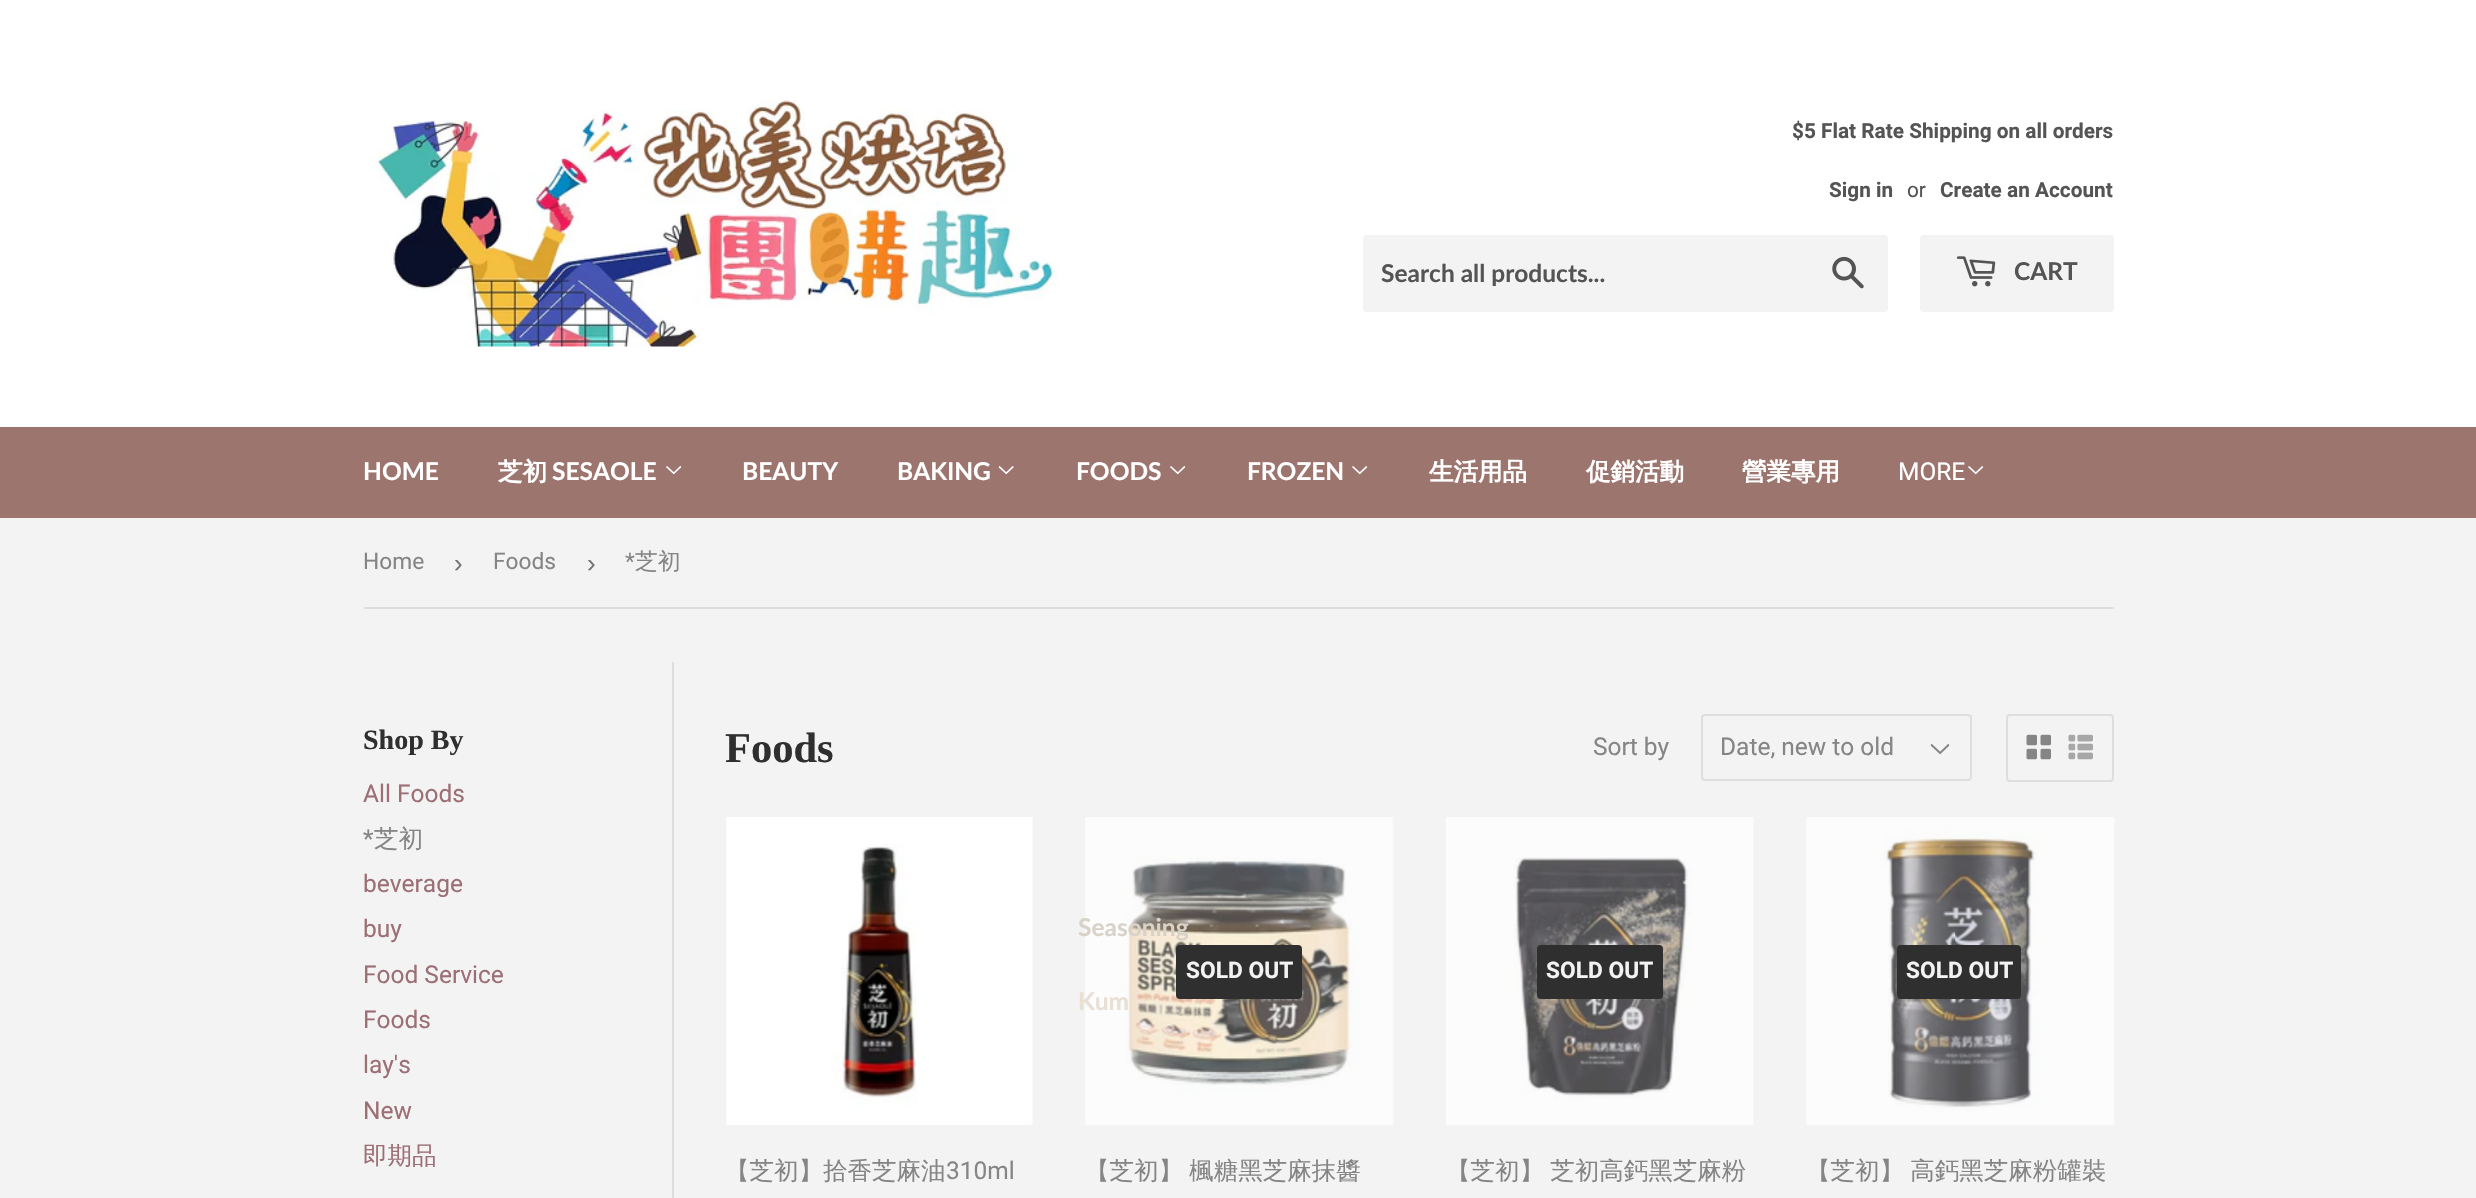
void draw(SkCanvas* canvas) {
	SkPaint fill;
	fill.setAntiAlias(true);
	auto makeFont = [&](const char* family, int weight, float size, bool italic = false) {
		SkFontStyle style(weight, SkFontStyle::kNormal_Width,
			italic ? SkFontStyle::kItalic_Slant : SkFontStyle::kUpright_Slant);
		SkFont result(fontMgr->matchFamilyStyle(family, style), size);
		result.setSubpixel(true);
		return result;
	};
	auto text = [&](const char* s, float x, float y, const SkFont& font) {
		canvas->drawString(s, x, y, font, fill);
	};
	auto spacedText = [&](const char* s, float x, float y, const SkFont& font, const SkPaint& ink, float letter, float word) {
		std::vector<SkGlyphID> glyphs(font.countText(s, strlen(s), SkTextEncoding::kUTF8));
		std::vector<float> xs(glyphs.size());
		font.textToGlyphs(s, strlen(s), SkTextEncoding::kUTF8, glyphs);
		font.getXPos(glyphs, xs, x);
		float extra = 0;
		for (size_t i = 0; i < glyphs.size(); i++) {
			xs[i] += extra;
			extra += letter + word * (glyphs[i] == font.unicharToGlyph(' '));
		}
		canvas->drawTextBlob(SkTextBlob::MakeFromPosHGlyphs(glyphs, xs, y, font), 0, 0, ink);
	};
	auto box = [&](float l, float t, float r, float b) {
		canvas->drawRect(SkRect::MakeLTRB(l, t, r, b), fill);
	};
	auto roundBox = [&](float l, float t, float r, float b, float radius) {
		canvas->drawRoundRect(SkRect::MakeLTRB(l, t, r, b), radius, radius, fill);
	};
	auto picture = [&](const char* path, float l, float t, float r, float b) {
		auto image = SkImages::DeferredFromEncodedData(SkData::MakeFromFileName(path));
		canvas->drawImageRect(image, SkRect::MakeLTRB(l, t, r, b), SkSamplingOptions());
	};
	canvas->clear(0xFFF3F3F3);
	fill.setColor(0xFFFFFFFF);
	box(0, 0, 2476, 427);
	picture("image0.png", 374, 99, 1059, 347);
	fill.setColor(0xFFF3F3F3);
	roundBox(1363, 235, 1888, 312, 4);
	picture("image1.png", 1832, 256, 1864, 289);
	roundBox(1920, 235, 2114, 312, 4);
	picture("image2.png", 1956, 256, 1996, 287);
	fill.setColor(0xFF9C756F);
	box(0, 427, 2476, 518);
	picture("image3.png", 666, 466, 682, 475);
	picture("image4.png", 998, 466, 1014, 475);
	picture("image3.png", 1170, 466, 1186, 475);
	picture("image3.png", 1352, 466, 1368, 475);
	picture("image3.png", 1968, 466, 1984, 475);
	fill.setColor(0xFFDEDEDE);
	box(364, 607, 2114, 609);
	box(672, 662, 674, 1198);
	picture("image5.png", 1930, 744, 1950, 755);
	fill.setStyle(SkPaint::kStroke_Style);
	fill.setStrokeWidth(2);
	canvas->drawRoundRect(SkRect::MakeLTRB(1702, 715, 1971, 780), 3, 3, fill);
	canvas->drawRoundRect(SkRect::MakeLTRB(2007, 715, 2113, 781), 3, 3, fill);
	picture("image6.png", 2026, 734, 2051, 760);
	picture("image7.png", 2068, 734, 2093, 760);
	picture("image8.png", 726, 817, 1033, 1125);
	picture("image9.png", 1085, 817, 1394, 1125);
	fill.setStyle(SkPaint::kFill_Style);
	fill.setColor(0xFF2F2F2F);
	roundBox(1176, 945, 1302, 999, 4);
	picture("image10.png", 1446, 817, 1754, 1125);
	roundBox(1537, 945, 1663, 999, 4);
	picture("image11.png", 1806, 817, 2115, 1125);
	roundBox(1897, 945, 2021, 999, 4);
	auto font1 = makeFont("Roboto", 700, 20.8f);
	fill.setColor(0xFF545454);
	text("$5 Flat Rate Shipping on all orders", 1792, 138, font1);
	text("Sign in", 1829, 197, font1);
	auto font2 = makeFont("Roboto", 400, 20.8f);
	text("or", 1907, 197, font2);
	text("Create an Account", 1940, 197, font1);
	auto font3 = makeFont("Lato", 700, 24.5f);
	text("Search all products...", 1381, 282, font3);
	text("CART", 2014, 280, font3);
	fill.setColor(0xFFFFFFFF);
	text("HOME", 363, 480, font3);
	auto font4 = makeFont("WenQuanYi Zen Hei", 700, 24.5f);
	text("芝初", 498, 480, font4);
	text("SESAOLE", 552, 480, font3);
	text("BEAUTY", 742, 480, font3);
	text("BAKING", 897, 480, font3);
	text("FOODS", 1076, 480, font3);
	fill.setColor(0xFFD8D2C9);
	text("Seasoning", 1078, 936, font3);
	fill.setColor(0xFFE8DFD5);
	text("Kum", 1078, 1010, font3);
	fill.setColor(0xFFFFFFFF);
	text("FROZEN", 1247, 480, font3);
	text("生活用品", 1429, 480, font4);
	text("促銷活動", 1586, 480, font4);
	text("營業專用", 1742, 480, font4);
	auto font5 = makeFont("Roboto", 400, 24.5f);
	text("MORE", 1898, 480, font5);
	auto font6 = makeFont("Roboto", 400, 22.75f);
	fill.setColor(0xFF858585);
	text("Home", 363, 569, font6);
	auto font7 = makeFont("Liberation Sans", 400, 26);
	fill.setColor(0xFF767676);
	text("›", 454, 572, font7);
	fill.setColor(0xFF858585);
	text("Foods", 493, 569, font6);
	fill.setColor(0xFF767676);
	text("›", 587, 572, font7);
	fill.setColor(0xFF858585);
	text("*", 625, 569, font6);
	auto font8 = makeFont("WenQuanYi Zen Hei", 500, 22.75f);
	text("芝初", 635, 569, font8);
	auto font9 = makeFont("Liberation Serif", 700, 28);
	fill.setColor(0xFF2F2F2F);
	text("Shop By", 363, 749, font9);
	fill.setColor(0xFF9C6F76);
	text("All Foods", 363, 802, font5);
	fill.setColor(0xFF858585);
	text("*", 363, 847, font5);
	auto font10 = makeFont("WenQuanYi Zen Hei", 500, 24.5f);
	text("芝初", 374, 847, font10);
	fill.setColor(0xFF9C6F76);
	text("beverage", 363, 892, font5);
	text("buy", 363, 937, font5);
	text("Food Service", 363, 983, font5);
	text("Foods", 363, 1028, font5);
	text("lay's", 363, 1073, font5);
	text("New", 363, 1119, font5);
	text("即期品", 363, 1164, font10);
	auto font11 = makeFont("Liberation Serif", 700, 42.5f);
	fill.setColor(0xFF2F2F2F);
	text("Foods", 725, 762, font11);
	fill.setColor(0xFF858585);
	text("Sort by", 1593, 755, font5);
	text("Date, new to old", 1720, 755, font5);
	text("【芝初】拾香芝麻油", 725, 1179, font10);
	text("310ml", 946, 1179, font5);
	auto font12 = makeFont("Roboto", 700, 22.75f);
	fill.setColor(0xFFF3F3F3);
	text("SOLD OUT", 1186, 978, font12);
	fill.setColor(0xFF858585);
	spacedText("【芝初】 楓糖黑芝麻抹醬", 1085, 1179, font10, fill, 0, -1);
	fill.setColor(0xFFF3F3F3);
	text("SOLD OUT", 1546, 978, font12);
	fill.setColor(0xFF858585);
	spacedText("【芝初】 芝初高鈣黑芝麻粉", 1446, 1179, font10, fill, 0, -1);
	fill.setColor(0xFFF3F3F3);
	text("SOLD OUT", 1906, 978, font12);
	fill.setColor(0xFF858585);
	spacedText("【芝初】 高鈣黑芝麻粉罐裝", 1806, 1179, font10, fill, 0, -1);
}
